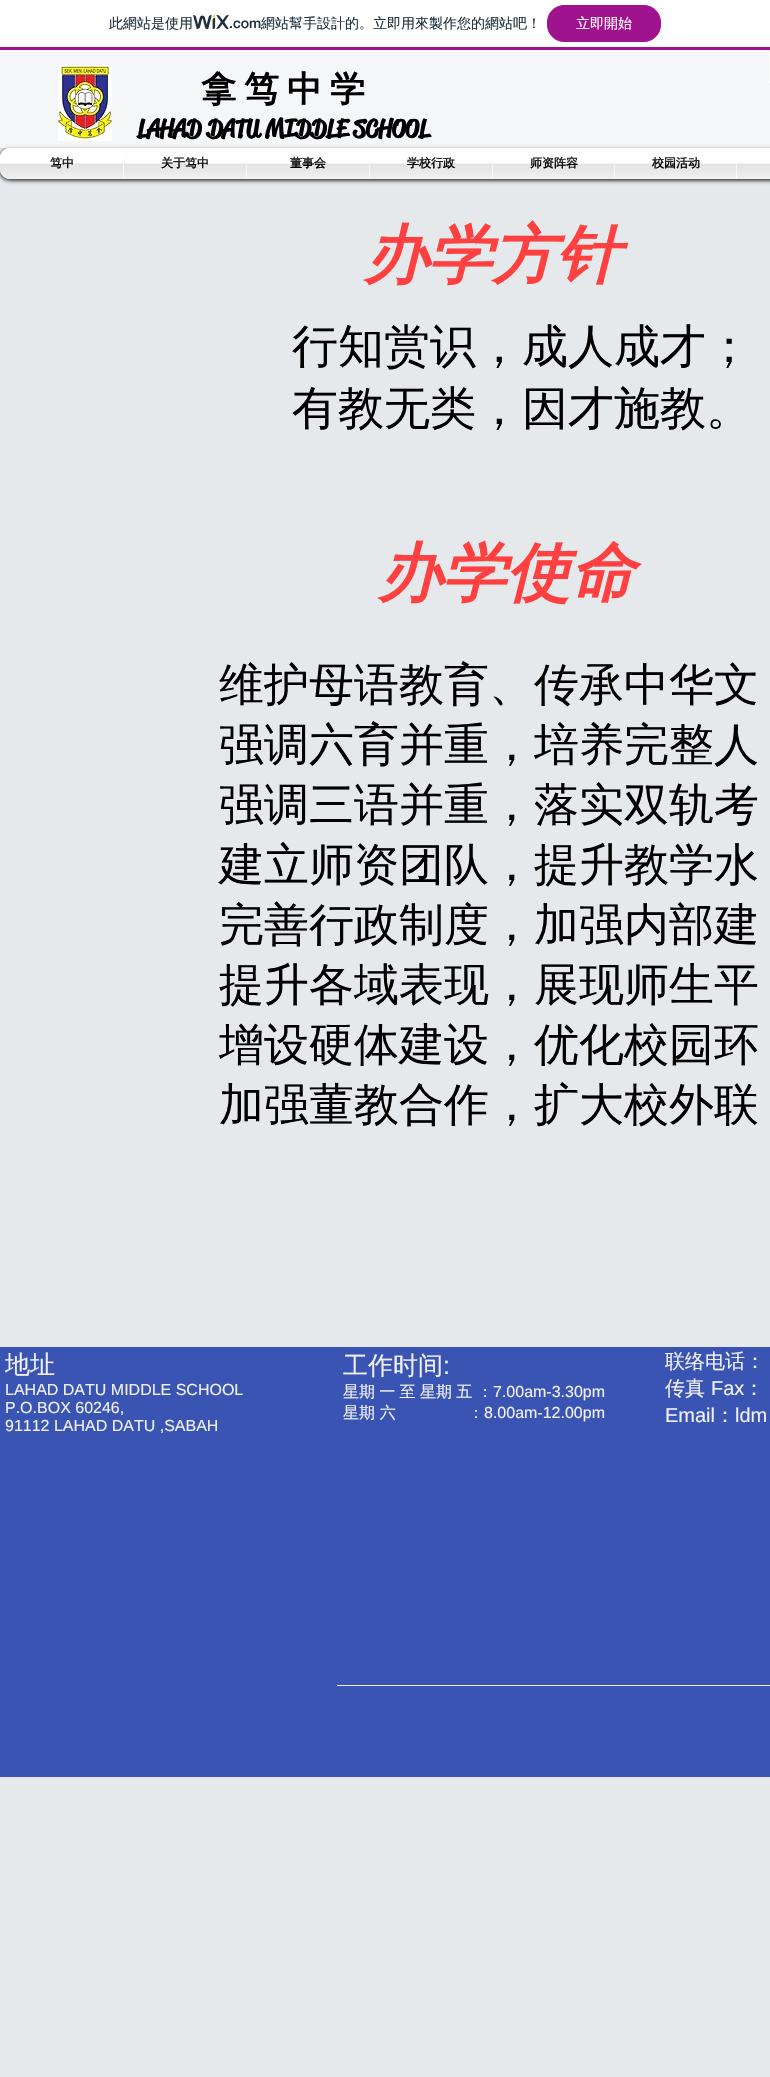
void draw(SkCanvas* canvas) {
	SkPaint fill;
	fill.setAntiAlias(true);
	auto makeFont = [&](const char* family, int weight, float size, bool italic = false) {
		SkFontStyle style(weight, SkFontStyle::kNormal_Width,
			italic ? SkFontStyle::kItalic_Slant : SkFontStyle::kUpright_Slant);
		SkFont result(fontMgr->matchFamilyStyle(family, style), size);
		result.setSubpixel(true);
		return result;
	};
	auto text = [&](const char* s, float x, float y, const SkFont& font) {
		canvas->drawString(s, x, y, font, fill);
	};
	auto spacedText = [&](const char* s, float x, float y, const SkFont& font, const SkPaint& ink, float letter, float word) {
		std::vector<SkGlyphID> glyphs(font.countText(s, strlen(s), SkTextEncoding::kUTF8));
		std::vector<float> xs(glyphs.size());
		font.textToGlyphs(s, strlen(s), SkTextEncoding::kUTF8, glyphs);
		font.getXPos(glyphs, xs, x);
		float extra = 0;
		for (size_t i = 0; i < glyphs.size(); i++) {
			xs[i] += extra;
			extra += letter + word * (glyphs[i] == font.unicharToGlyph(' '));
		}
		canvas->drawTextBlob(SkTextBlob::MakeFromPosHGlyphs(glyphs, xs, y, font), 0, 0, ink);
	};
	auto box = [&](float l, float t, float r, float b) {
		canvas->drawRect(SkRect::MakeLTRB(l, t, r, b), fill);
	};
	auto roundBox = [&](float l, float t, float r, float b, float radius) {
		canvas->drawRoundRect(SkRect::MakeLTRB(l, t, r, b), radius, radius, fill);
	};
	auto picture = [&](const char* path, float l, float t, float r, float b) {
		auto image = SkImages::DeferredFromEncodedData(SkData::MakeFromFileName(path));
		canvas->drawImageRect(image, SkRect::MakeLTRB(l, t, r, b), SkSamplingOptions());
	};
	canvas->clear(0xFFFFFFFF);
	fill.setColor(0xFFA0138E);
	box(0, 47, 770, 50);
	picture("image0.png", 193, 15, 229, 30);
	canvas->drawRoundRect(SkRect::MakeLTRB(547.5f, 5.5f, 660.5f, 41.5f), 16.5f, 16.5f, fill);
	fill.setStyle(SkPaint::kStroke_Style);
	fill.setStrokeWidth(1);
	canvas->drawRoundRect(SkRect::MakeLTRB(547.5f, 5.5f, 660.5f, 41.5f), 16.5f, 16.5f, fill);
	fill.setStyle(SkPaint::kFill_Style);
	fill.setColor(0xFFE6E9EB);
	box(0, 50, 770, 2077);
	canvas->save();
	canvas->clipPath(SkPathBuilder(SkPathFillType::kEvenOdd).moveTo(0, 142).lineTo(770, 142).lineTo(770, 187).lineTo(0, 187).close().moveTo(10, 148).lineTo(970, 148).cubicTo(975.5f, 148, 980, 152.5f, 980, 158).lineTo(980, 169).cubicTo(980, 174.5f, 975.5f, 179, 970, 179).lineTo(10, 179).cubicTo(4.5f, 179, 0, 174.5f, 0, 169).lineTo(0, 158).cubicTo(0, 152.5f, 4.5f, 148, 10, 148).close().detach(), true);
	fill.setColor(0x99000000);
	fill.setMaskFilter(SkMaskFilter::MakeBlur(kNormal_SkBlurStyle, 2));
	canvas->drawRoundRect(SkRect::MakeLTRB(0, 149, 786, 180), 10, 10, fill);
	fill.setMaskFilter(nullptr);
	canvas->restore();
	fill.setColor(0xA3FFFFFF);
	roundBox(0, 148, 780, 179, 10);
	picture("image10.png", 0, 163, 770, 179);
	canvas->drawPath(SkPathBuilder().moveTo(10, 148).lineTo(123, 148).lineTo(123, 179).lineTo(10, 179).cubicTo(4.5f, 179, 0, 174.5f, 0, 169).lineTo(0, 158).cubicTo(0, 152.5f, 4.5f, 148, 10, 148).close().detach(), fill);
	picture("image11.png", 0, 157, 123, 179);
	box(123, 148, 246, 179);
	picture("image12.png", 124, 157, 246, 179);
	box(246, 148, 369, 179);
	picture("image13.png", 247, 157, 369, 179);
	box(369, 148, 492, 179);
	picture("image14.png", 370, 157, 492, 179);
	box(492, 148, 614, 179);
	picture("image15.png", 493, 157, 614, 179);
	box(614, 148, 736, 179);
	picture("image16.png", 615, 157, 736, 179);
	box(736, 148, 770, 179);
	picture("image17.png", 737, 163, 770, 179);
	canvas->save();
	canvas->clipPath(SkPathBuilder(SkPathFillType::kEvenOdd).moveTo(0, 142).lineTo(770, 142).lineTo(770, 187).lineTo(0, 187).close().moveTo(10, 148).lineTo(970, 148).cubicTo(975.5f, 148, 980, 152.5f, 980, 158).lineTo(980, 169).cubicTo(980, 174.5f, 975.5f, 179, 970, 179).lineTo(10, 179).cubicTo(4.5f, 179, 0, 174.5f, 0, 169).lineTo(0, 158).cubicTo(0, 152.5f, 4.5f, 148, 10, 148).close().detach(), true);
	fill.setColor(0x99000000);
	fill.setMaskFilter(SkMaskFilter::MakeBlur(kNormal_SkBlurStyle, 2));
	canvas->drawRoundRect(SkRect::MakeLTRB(0, 149, 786, 180), 10, 10, fill);
	fill.setMaskFilter(nullptr);
	canvas->restore();
	fill.setColor(0x99FFFFFF);
	box(0, 50, 770, 148);
	picture("image1.png", 58, 65, 112, 141);
	fill.setColor(0xFFFFFFFF);
	box(769, 52, 770, 83);
	fill.setColor(0xA3FFFFFF);
	roundBox(0, 148, 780, 179, 10);
	picture("image2.png", 0, 157, 770, 179);
	canvas->drawPath(SkPathBuilder().moveTo(10, 148).lineTo(123, 148).lineTo(123, 179).lineTo(10, 179).cubicTo(4.5f, 179, 0, 174.5f, 0, 169).lineTo(0, 158).cubicTo(0, 152.5f, 4.5f, 148, 10, 148).close().detach(), fill);
	box(123, 163, 246, 179);
	box(246, 163, 369, 179);
	box(369, 163, 492, 179);
	box(492, 163, 614, 179);
	box(614, 163, 736, 179);
	box(736, 163, 770, 179);
	picture("image9.png", 737, 163, 770, 179);
	fill.setColor(0xFF3A54B4);
	box(0, 1347, 770, 1777);
	fill.setColor(0xFFF0F0F0);
	box(337, 1685, 770, 1686);
	auto font1 = makeFont("WenQuanYi Zen Hei", 500, 14);
	fill.setColor(0xFF20303C);
	text("此網站是使用", 109, 28, font1);
	auto font2 = makeFont("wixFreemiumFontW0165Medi", 500, 14);
	text(".com", 229, 28, font2);
	text("網站幫手設計的。立即用來製作您的網站吧！", 261, 28, font1);
	fill.setColor(0xFFFFFFFF);
	text("立即開始", 576, 28, font1);
	auto font3 = makeFont("WenQuanYi Zen Hei", 700, 35);
	fill.setColor(0xFF000000);
	spacedText("拿 笃 中 学", 201, 101, font3, fill, 0, -2.5f);
	auto font4 = makeFont("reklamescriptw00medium", 700, 25);
	text("LAHAD DATU MIDDLE SCHOOL", 137, 137, font4);
	auto font5 = makeFont("WenQuanYi Zen Hei", 700, 12);
	text("笃中", 50, 167, font5);
	picture("image3.png", 0, 157, 123, 179);
	text("关于笃中", 161, 167, font5);
	picture("image4.png", 124, 157, 246, 179);
	text("董事会", 290, 167, font5);
	picture("image5.png", 247, 157, 369, 179);
	text("学校行政", 407, 167, font5);
	picture("image6.png", 370, 157, 492, 179);
	text("师资阵容", 530, 167, font5);
	picture("image7.png", 493, 157, 614, 179);
	text("校园活动", 652, 167, font5);
	picture("image8.png", 615, 157, 736, 179);
	auto font6 = makeFont("WenQuanYi Zen Hei", 700, 64, true);
	fill.setColor(0xFFFF4040);
	text("办学方针", 364, 277, font6);
	auto font7 = makeFont("WenQuanYi Zen Hei", 500, 46);
	fill.setColor(0xFF000000);
	text("行知赏识，成人成才；", 292, 362, font7);
	text("有教无类，因才施教。", 292, 424, font7);
	fill.setColor(0xFFFF4040);
	text("办学使命", 378, 595, font6);
	auto font8 = makeFont("WenQuanYi Zen Hei", 500, 45);
	fill.setColor(0xFF000000);
	text("维护母语教育、传承中华文", 219, 700, font8);
	text("强调六育并重，培养完整人", 219, 760, font8);
	text("强调三语并重，落实双轨考", 219, 820, font8);
	text("建立师资团队，提升教学水", 219, 880, font8);
	text("完善行政制度，加强内部建", 219, 940, font8);
	text("提升各域表现，展现师生平", 219, 1000, font8);
	text("增设硬体建设，优化校园环", 219, 1060, font8);
	text("加强董教合作，扩大校外联", 219, 1120, font8);
	auto font9 = makeFont("WenQuanYi Zen Hei", 500, 25);
	fill.setColor(0xFFF0F0F0);
	text("地址", 5, 1373, font9);
	auto font10 = makeFont("Liberation Sans", 400, 16);
	text("LAHAD DATU MIDDLE SCHOOL", 5, 1395, font10);
	text("P.O.BOX 60246,", 5, 1413, font10);
	text("91112 LAHAD DATU ,SABAH", 5, 1431, font10);
	text("工作时间", 343, 1374, font9);
	auto font11 = makeFont("Liberation Sans", 400, 25);
	text(":", 443, 1374, font11);
	auto font12 = makeFont("WenQuanYi Zen Hei", 500, 16);
	spacedText("星期 一 至 星期 五", 343, 1397, font12, fill, 0, -0.5f);
	text("：", 477, 1397, font12);
	text("7.00am-3.30pm", 493, 1397, font10);
	text("星期 六", 343, 1418, font12);
	text("：", 468, 1418, font12);
	text("8.00am-12.00pm", 484, 1418, font10);
	auto font13 = makeFont("WenQuanYi Zen Hei", 500, 20);
	text("联络电话：", 665, 1368, font13);
	text("传真", 665, 1395, font13);
	auto font14 = makeFont("Liberation Sans", 400, 20);
	text("Fax", 711, 1395, font14);
	text("：", 744, 1395, font13);
	text("Email", 665, 1422, font14);
	text("：", 715, 1422, font13);
	text("ldm", 735, 1422, font14);
}
